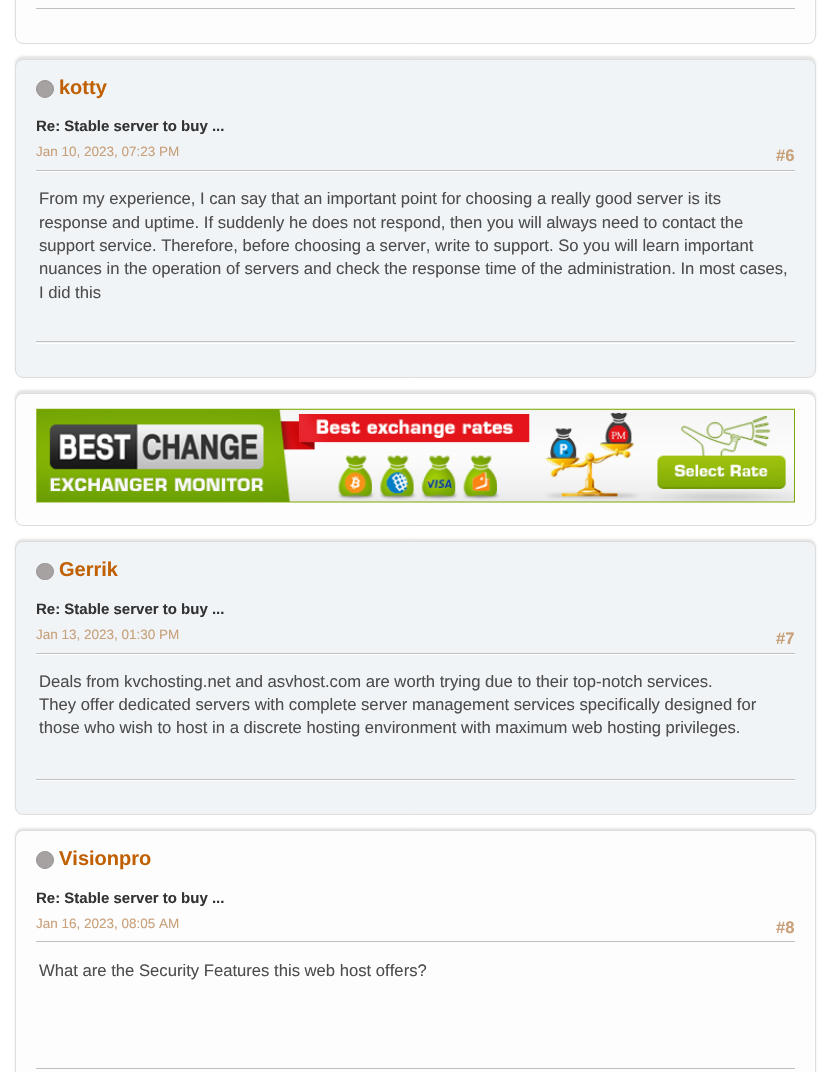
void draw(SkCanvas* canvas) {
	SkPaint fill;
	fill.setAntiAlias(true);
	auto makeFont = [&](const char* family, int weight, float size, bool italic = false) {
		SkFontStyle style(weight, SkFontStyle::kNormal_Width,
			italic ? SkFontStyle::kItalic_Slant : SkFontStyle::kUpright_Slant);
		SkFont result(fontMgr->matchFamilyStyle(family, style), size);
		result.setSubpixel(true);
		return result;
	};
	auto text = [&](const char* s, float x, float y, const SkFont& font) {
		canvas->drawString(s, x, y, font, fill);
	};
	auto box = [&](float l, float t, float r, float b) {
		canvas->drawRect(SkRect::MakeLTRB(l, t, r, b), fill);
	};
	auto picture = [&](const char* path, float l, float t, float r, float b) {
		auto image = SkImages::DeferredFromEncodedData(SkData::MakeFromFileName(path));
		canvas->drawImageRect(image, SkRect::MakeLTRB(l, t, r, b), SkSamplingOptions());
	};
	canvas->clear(0xFFFFFFFF);
	fill.setColor(0x1A000000);
	fill.setMaskFilter(SkMaskFilter::MakeBlur(kNormal_SkBlurStyle, 1));
	canvas->drawRoundRect(SkRect::MakeLTRB(15, -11, 816, 41), 8, 8, fill);
	fill.setMaskFilter(nullptr);
	fill.setColor(0xFFFDFDFD);
	canvas->drawRoundRect(SkRect::MakeLTRB(15.5f, -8.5f, 815.5f, 43.5f), 7.5f, 7.5f, fill);
	fill.setStyle(SkPaint::kStroke_Style);
	fill.setStrokeWidth(1);
	fill.setColor(0xFFDDDDDD);
	canvas->drawRoundRect(SkRect::MakeLTRB(15.5f, -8.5f, 815.5f, 43.5f), 7.5f, 7.5f, fill);
	fill.setStyle(SkPaint::kFill_Style);
	fill.setColor(0xFFBFBFBF);
	box(36, 8, 795, 9);
	fill.setColor(0x1A000000);
	fill.setMaskFilter(SkMaskFilter::MakeBlur(kNormal_SkBlurStyle, 1));
	canvas->drawRoundRect(SkRect::MakeLTRB(15, 56, 816, 375), 8, 8, fill);
	fill.setMaskFilter(nullptr);
	fill.setColor(0xFFF0F4F7);
	canvas->drawRoundRect(SkRect::MakeLTRB(15.5f, 59.5f, 815.5f, 377.5f), 7.5f, 7.5f, fill);
	fill.setStyle(SkPaint::kStroke_Style);
	fill.setColor(0xFFDDDDDD);
	canvas->drawRoundRect(SkRect::MakeLTRB(15.5f, 59.5f, 815.5f, 377.5f), 7.5f, 7.5f, fill);
	fill.setStyle(SkPaint::kFill_Style);
	fill.setColor(0xFFA7A2A2);
	canvas->drawCircle(45, 89, 8.5f, fill);
	fill.setStyle(SkPaint::kStroke_Style);
	fill.setColor(0xFF969292);
	canvas->drawCircle(45, 89, 8.5f, fill);
	fill.setStyle(SkPaint::kFill_Style);
	fill.setColor(0xFFFFFFFF);
	box(36, 171, 795, 172);
	fill.setColor(0xFFBFBFBF);
	box(36, 170, 795, 171);
	fill.setColor(0xFFFFFFFF);
	box(36, 343, 795, 344);
	fill.setColor(0xFFBFBFBF);
	box(36, 341, 795, 342);
	fill.setColor(0x1A000000);
	fill.setMaskFilter(SkMaskFilter::MakeBlur(kNormal_SkBlurStyle, 1));
	canvas->drawRoundRect(SkRect::MakeLTRB(15, 390, 816, 524), 8, 8, fill);
	fill.setMaskFilter(nullptr);
	fill.setColor(0xFFFDFDFD);
	canvas->drawRoundRect(SkRect::MakeLTRB(15.5f, 393.5f, 815.5f, 525.5f), 7.5f, 7.5f, fill);
	fill.setStyle(SkPaint::kStroke_Style);
	fill.setColor(0xFFDDDDDD);
	canvas->drawRoundRect(SkRect::MakeLTRB(15.5f, 393.5f, 815.5f, 525.5f), 7.5f, 7.5f, fill);
	picture("image0.png", 36, 408, 795, 503);
	fill.setStyle(SkPaint::kFill_Style);
	fill.setColor(0x1A000000);
	fill.setMaskFilter(SkMaskFilter::MakeBlur(kNormal_SkBlurStyle, 1));
	canvas->drawRoundRect(SkRect::MakeLTRB(15, 539, 816, 813), 8, 8, fill);
	fill.setMaskFilter(nullptr);
	fill.setColor(0xFFF0F4F7);
	canvas->drawRoundRect(SkRect::MakeLTRB(15.5f, 541.5f, 815.5f, 814.5f), 7.5f, 7.5f, fill);
	fill.setStyle(SkPaint::kStroke_Style);
	fill.setColor(0xFFDDDDDD);
	canvas->drawRoundRect(SkRect::MakeLTRB(15.5f, 541.5f, 815.5f, 814.5f), 7.5f, 7.5f, fill);
	fill.setStyle(SkPaint::kFill_Style);
	fill.setColor(0xFFA7A2A2);
	canvas->drawRoundRect(SkRect::MakeLTRB(36.5f, 563.5f, 53.5f, 579.5f), 8, 8, fill);
	fill.setStyle(SkPaint::kStroke_Style);
	fill.setColor(0xFF969292);
	canvas->drawRoundRect(SkRect::MakeLTRB(36.5f, 563.5f, 53.5f, 579.5f), 8, 8, fill);
	fill.setStyle(SkPaint::kFill_Style);
	fill.setColor(0xFFFFFFFF);
	box(36, 654, 795, 655);
	fill.setColor(0xFFBFBFBF);
	box(36, 653, 795, 654);
	fill.setColor(0xFFFFFFFF);
	box(36, 780, 795, 781);
	fill.setColor(0xFFBFBFBF);
	box(36, 779, 795, 780);
	fill.setColor(0x1A000000);
	fill.setMaskFilter(SkMaskFilter::MakeBlur(kNormal_SkBlurStyle, 1));
	canvas->drawRoundRect(SkRect::MakeLTRB(15, 828, 816, 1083), 8, 8, fill);
	fill.setMaskFilter(nullptr);
	fill.setColor(0xFFFDFDFD);
	canvas->drawRoundRect(SkRect::MakeLTRB(15.5f, 830.5f, 815.5f, 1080.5f), 7.5f, 7.5f, fill);
	fill.setStyle(SkPaint::kStroke_Style);
	fill.setColor(0xFFDDDDDD);
	canvas->drawRoundRect(SkRect::MakeLTRB(15.5f, 830.5f, 815.5f, 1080.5f), 7.5f, 7.5f, fill);
	fill.setStyle(SkPaint::kFill_Style);
	fill.setColor(0xFFA7A2A2);
	canvas->drawCircle(45, 860, 8.5f, fill);
	fill.setStyle(SkPaint::kStroke_Style);
	fill.setColor(0xFF969292);
	canvas->drawCircle(45, 860, 8.5f, fill);
	fill.setStyle(SkPaint::kFill_Style);
	fill.setColor(0xFFBFBFBF);
	box(36, 941, 795, 942);
	box(36, 1068, 795, 1069);
	auto font1 = makeFont("Liberation Sans", 700, 20);
	fill.setColor(0xFFC06002);
	text("kotty", 59, 94, font1);
	auto font2 = makeFont("Liberation Sans", 700, 15);
	fill.setColor(0xFF333333);
	text("Re: Stable server to buy ...", 36, 131, font2);
	auto font3 = makeFont("Liberation Sans", 400, 13.5f);
	fill.setColor(0xFFC8A079);
	text("Jan 10, 2023, 07:23 PM", 36, 156, font3);
	auto font4 = makeFont("Liberation Sans", 700, 16.65f);
	text("#6", 776, 161, font4);
	auto font5 = makeFont("Liberation Sans", 400, 16.65f);
	fill.setColor(0xFF4D4D4D);
	text("From my experience, I can say that an important point for choosing a really good server is its", 39, 204, font5);
	text("response and uptime. If suddenly he does not respond, then you will always need to contact the", 39, 228, font5);
	text("support service. Therefore, before choosing a server, write to support. So you will learn important", 39, 251, font5);
	text("nuances in the operation of servers and check the response time of the administration. In most cases,", 39, 274, font5);
	text("I did this", 39, 298, font5);
	fill.setColor(0xFFC06002);
	text("Gerrik", 59, 576, font1);
	fill.setColor(0xFF333333);
	text("Re: Stable server to buy ...", 36, 614, font2);
	fill.setColor(0xFFC8A079);
	text("Jan 13, 2023, 01:30 PM", 36, 639, font3);
	text("#7", 776, 644, font4);
	fill.setColor(0xFF4D4D4D);
	text("Deals from kvchosting.net and asvhost.com are worth trying due to their top-notch services.", 39, 687, font5);
	text("They offer dedicated servers with complete server management services specifically designed for", 39, 710, font5);
	text("those who wish to host in a discrete hosting environment with maximum web hosting privileges.", 39, 733, font5);
	fill.setColor(0xFFC06002);
	text("Visionpro", 59, 865, font1);
	fill.setColor(0xFF333333);
	text("Re: Stable server to buy ...", 36, 903, font2);
	fill.setColor(0xFFC8A079);
	text("Jan 16, 2023, 08:05 AM", 36, 928, font3);
	text("#8", 776, 933, font4);
	fill.setColor(0xFF4D4D4D);
	text("What are the Security Features this web host offers?", 39, 976, font5);
}
